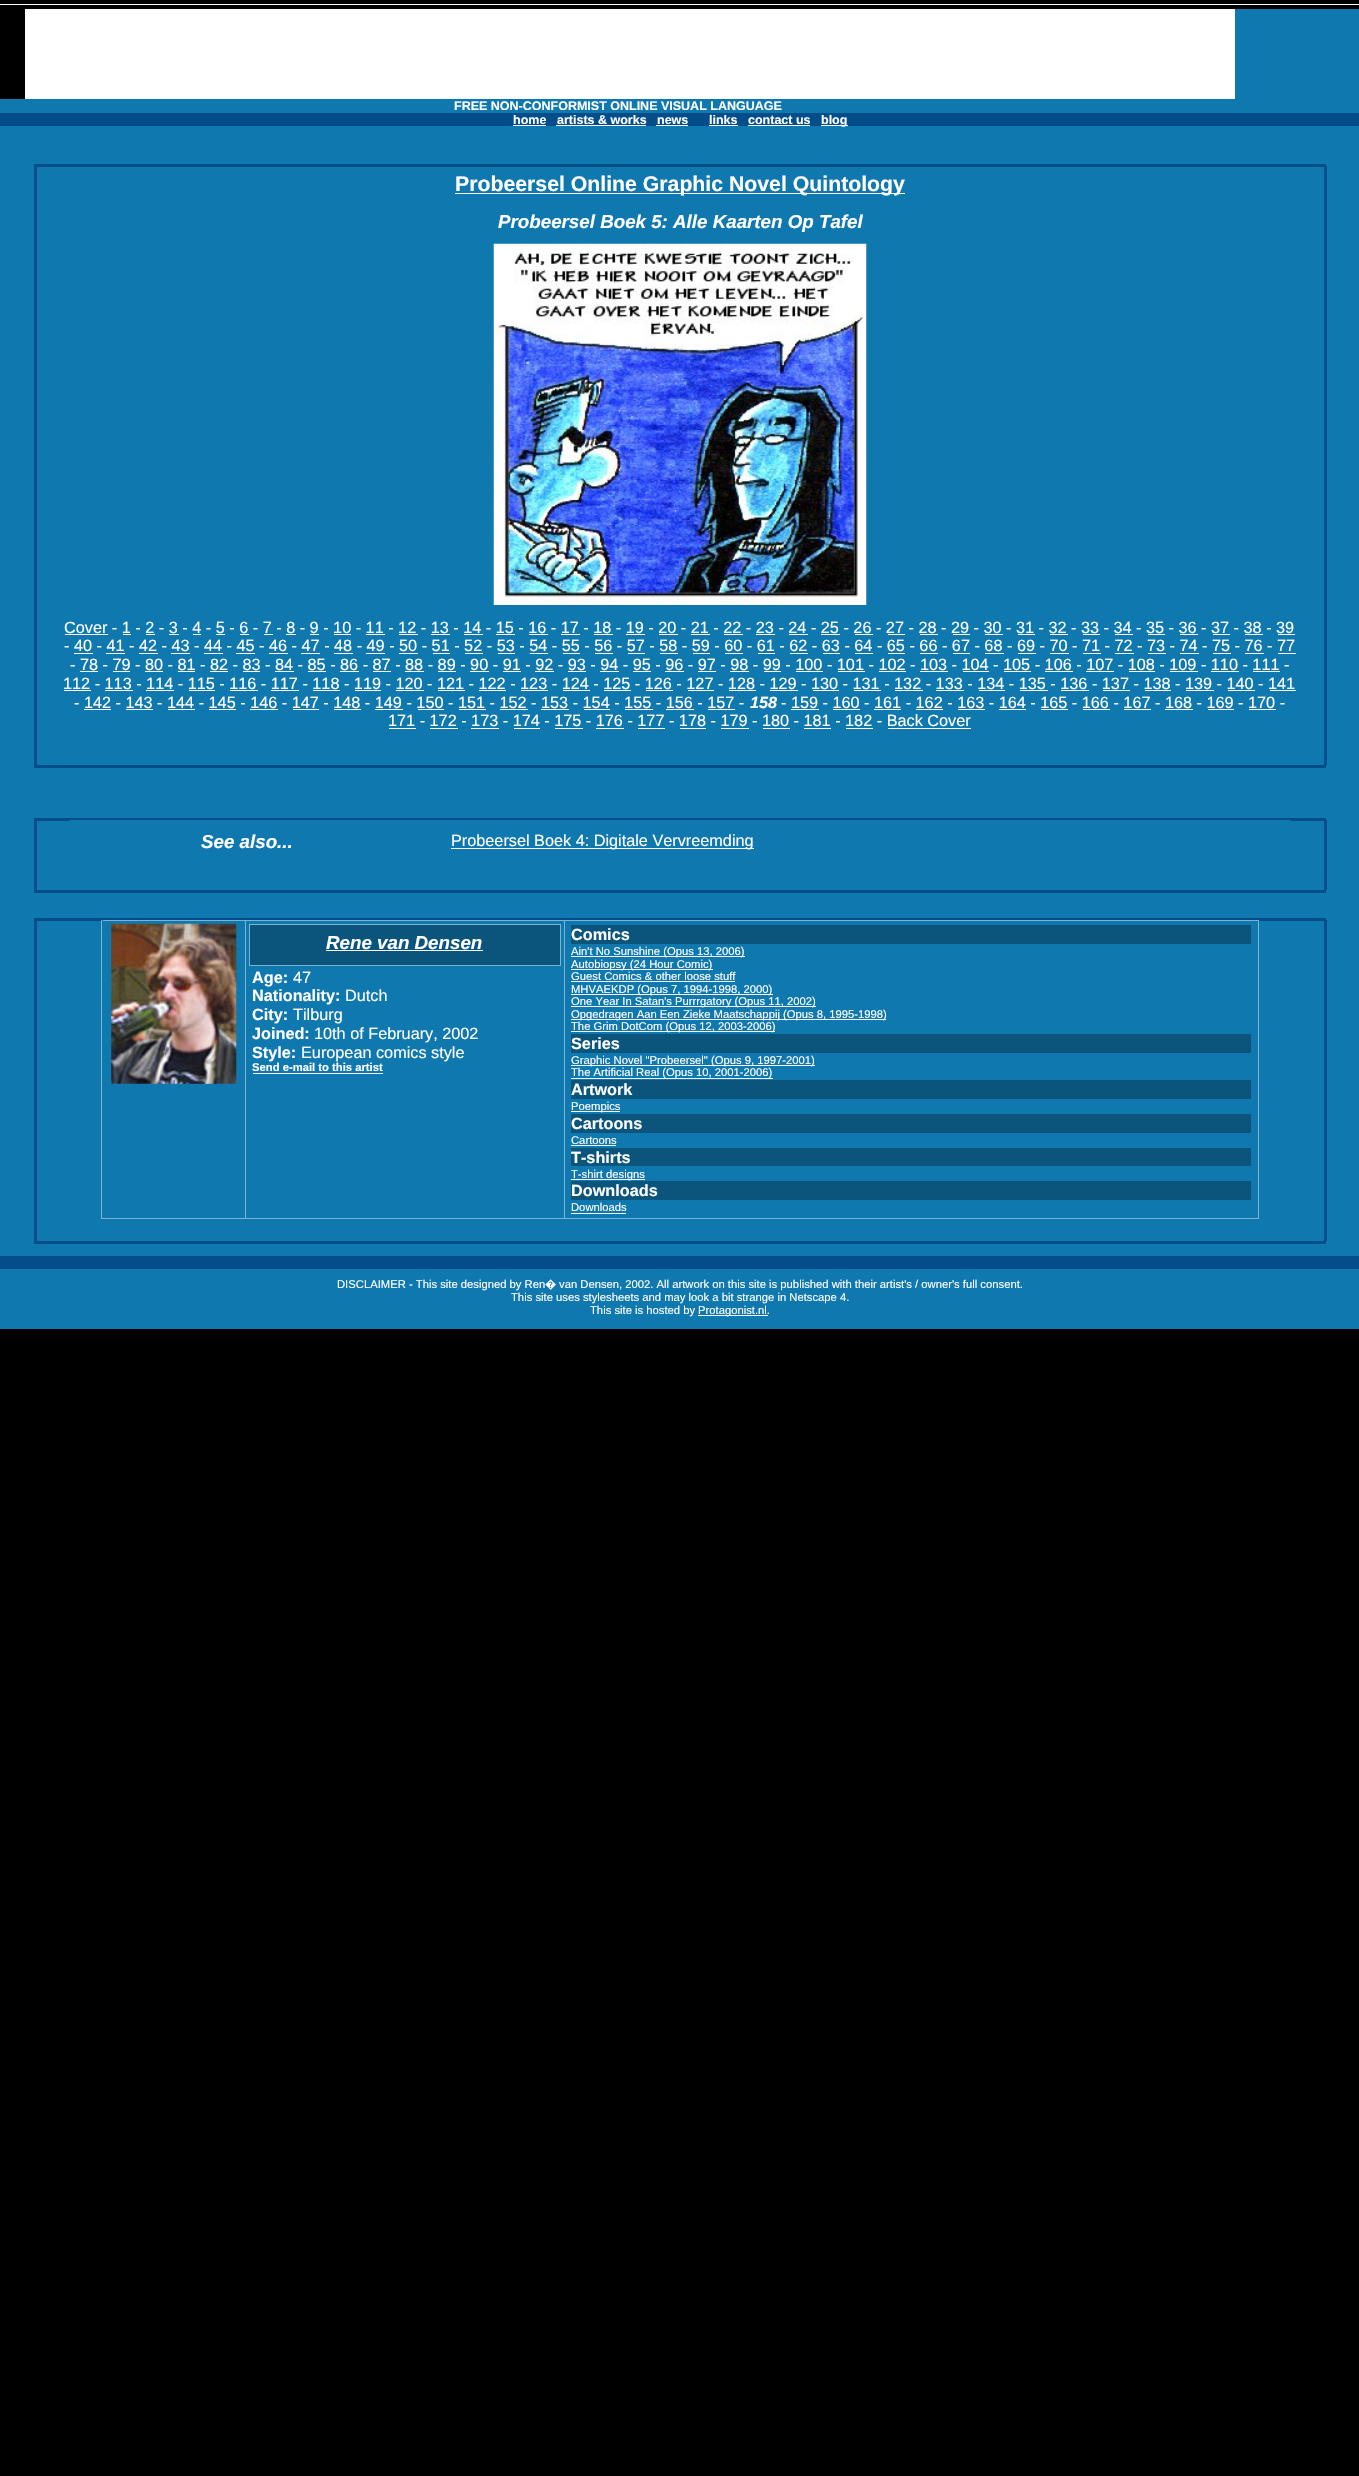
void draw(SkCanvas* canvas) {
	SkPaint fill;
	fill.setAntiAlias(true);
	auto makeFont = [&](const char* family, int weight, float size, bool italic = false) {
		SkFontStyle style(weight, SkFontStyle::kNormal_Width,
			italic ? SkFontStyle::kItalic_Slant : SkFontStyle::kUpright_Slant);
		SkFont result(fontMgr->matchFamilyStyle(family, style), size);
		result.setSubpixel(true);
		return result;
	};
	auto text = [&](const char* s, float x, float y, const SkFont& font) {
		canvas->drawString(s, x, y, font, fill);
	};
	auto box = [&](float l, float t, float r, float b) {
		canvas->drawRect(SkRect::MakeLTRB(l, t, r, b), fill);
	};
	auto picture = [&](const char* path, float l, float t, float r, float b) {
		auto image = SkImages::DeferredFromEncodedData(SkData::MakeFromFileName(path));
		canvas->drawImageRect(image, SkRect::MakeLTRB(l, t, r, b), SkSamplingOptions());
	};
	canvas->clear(0xFF000000);
	fill.setColor(0xFF0F78AF);
	box(0, 9, 1359, 1329);
	fill.setColor(0xFFFFFFFF);
	box(0, 4, 1359, 5);
	fill.setColor(0xFF000000);
	box(0, 9, 25, 99);
	fill.setColor(0xFFFFFFFF);
	box(25, 9, 1235, 99);
	fill.setColor(0xFF034D8A);
	box(0, 113, 1359, 126);
	fill.setColor(0xFFFFFFFF);
	box(513, 125, 546, 126);
	box(556, 125, 646, 126);
	box(656, 125, 688, 126);
	box(709, 125, 738, 126);
	box(748, 125, 810, 126);
	box(821, 125, 848, 126);
	fill.setColor(0xFF034D8A);
	box(34, 164, 1326, 167);
	box(34, 166, 37, 765);
	fill.setColor(0xFFFFFFFF);
	box(455, 193, 905, 194);
	picture("image0.png", 493, 243, 867, 605);
	box(65, 634, 108, 635);
	box(123, 634, 131, 635);
	box(146, 634, 155, 635);
	box(169, 634, 179, 635);
	box(193, 634, 201, 635);
	box(216, 634, 225, 635);
	box(240, 634, 249, 635);
	box(264, 634, 273, 635);
	box(286, 634, 296, 635);
	box(310, 634, 319, 635);
	box(334, 634, 351, 635);
	box(366, 634, 385, 635);
	box(399, 634, 418, 635);
	box(431, 634, 450, 635);
	box(464, 634, 483, 635);
	box(496, 634, 515, 635);
	box(529, 634, 548, 635);
	box(561, 634, 580, 635);
	box(594, 634, 613, 635);
	box(626, 634, 645, 635);
	box(659, 634, 678, 635);
	box(691, 634, 710, 635);
	box(724, 634, 743, 635);
	box(756, 634, 775, 635);
	box(789, 634, 808, 635);
	box(821, 634, 840, 635);
	box(855, 634, 873, 635);
	box(888, 634, 905, 635);
	box(920, 634, 938, 635);
	box(953, 634, 970, 635);
	box(985, 634, 1003, 635);
	box(1018, 634, 1035, 635);
	box(1050, 634, 1068, 635);
	box(1083, 634, 1100, 635);
	box(1115, 634, 1133, 635);
	box(1148, 634, 1165, 635);
	box(1180, 634, 1198, 635);
	box(1213, 634, 1230, 635);
	box(1245, 634, 1263, 635);
	box(1278, 634, 1295, 635);
	box(74, 653, 93, 654);
	box(106, 653, 125, 654);
	box(139, 653, 158, 654);
	box(171, 653, 190, 654);
	box(204, 653, 223, 654);
	box(236, 653, 255, 654);
	box(269, 653, 288, 654);
	box(301, 653, 320, 654);
	box(334, 653, 353, 654);
	box(366, 653, 385, 654);
	box(399, 653, 418, 654);
	box(433, 653, 450, 654);
	box(465, 653, 483, 654);
	box(498, 653, 515, 654);
	box(530, 653, 548, 654);
	box(563, 653, 580, 654);
	box(595, 653, 613, 654);
	box(628, 653, 645, 654);
	box(660, 653, 678, 654);
	box(693, 653, 710, 654);
	box(725, 653, 743, 654);
	box(758, 653, 775, 654);
	box(790, 653, 808, 654);
	box(823, 653, 840, 654);
	box(855, 653, 873, 654);
	box(888, 653, 905, 654);
	box(920, 653, 938, 654);
	box(953, 653, 970, 654);
	box(985, 653, 1004, 654);
	box(1018, 653, 1036, 654);
	box(1050, 653, 1069, 654);
	box(1083, 653, 1101, 654);
	box(1115, 653, 1134, 654);
	box(1148, 653, 1166, 654);
	box(1180, 653, 1199, 654);
	box(1213, 653, 1231, 654);
	box(1245, 653, 1264, 654);
	box(1278, 653, 1296, 654);
	box(80, 671, 98, 672);
	box(113, 671, 130, 672);
	box(145, 671, 163, 672);
	box(178, 671, 195, 672);
	box(210, 671, 228, 672);
	box(243, 671, 260, 672);
	box(275, 671, 294, 672);
	box(308, 671, 326, 672);
	box(340, 671, 359, 672);
	box(373, 671, 391, 672);
	box(405, 671, 424, 672);
	box(438, 671, 456, 672);
	box(470, 671, 489, 672);
	box(503, 671, 521, 672);
	box(535, 671, 554, 672);
	box(568, 671, 586, 672);
	box(600, 671, 619, 672);
	box(633, 671, 651, 672);
	box(665, 671, 684, 672);
	box(698, 671, 716, 672);
	box(730, 671, 749, 672);
	box(764, 671, 781, 672);
	box(796, 671, 823, 672);
	box(838, 671, 865, 672);
	box(879, 671, 906, 672);
	box(920, 671, 948, 672);
	box(963, 671, 989, 672);
	box(1004, 671, 1031, 672);
	box(1045, 671, 1073, 672);
	box(1086, 671, 1114, 672);
	box(1129, 671, 1155, 672);
	box(1170, 671, 1198, 672);
	box(1211, 671, 1239, 672);
	box(1253, 671, 1280, 672);
	box(64, 690, 91, 691);
	box(105, 690, 133, 691);
	box(146, 690, 174, 691);
	box(189, 690, 215, 691);
	box(230, 690, 258, 691);
	box(271, 690, 299, 691);
	box(313, 690, 340, 691);
	box(355, 690, 381, 691);
	box(396, 690, 424, 691);
	box(438, 690, 465, 691);
	box(479, 690, 506, 691);
	box(521, 690, 548, 691);
	box(563, 690, 590, 691);
	box(604, 690, 631, 691);
	box(646, 690, 673, 691);
	box(688, 690, 714, 691);
	box(729, 690, 756, 691);
	box(770, 690, 798, 691);
	box(813, 690, 839, 691);
	box(854, 690, 881, 691);
	box(895, 690, 923, 691);
	box(936, 690, 964, 691);
	box(979, 690, 1005, 691);
	box(1020, 690, 1048, 691);
	box(1061, 690, 1089, 691);
	box(1103, 690, 1130, 691);
	box(1145, 690, 1171, 691);
	box(1186, 690, 1214, 691);
	box(1228, 690, 1255, 691);
	box(1270, 690, 1296, 691);
	box(84, 709, 111, 710);
	box(126, 709, 153, 710);
	box(168, 709, 195, 710);
	box(209, 709, 236, 710);
	box(250, 709, 278, 710);
	box(293, 709, 319, 710);
	box(334, 709, 361, 710);
	box(375, 709, 403, 710);
	box(418, 709, 444, 710);
	box(459, 709, 486, 710);
	box(500, 709, 528, 710);
	box(541, 709, 569, 710);
	box(584, 709, 610, 710);
	box(625, 709, 653, 710);
	box(666, 709, 694, 710);
	box(708, 709, 735, 710);
	box(791, 709, 819, 710);
	box(833, 709, 860, 710);
	box(874, 709, 901, 710);
	box(916, 709, 943, 710);
	box(958, 709, 985, 710);
	box(999, 709, 1026, 710);
	box(1041, 709, 1068, 710);
	box(1083, 709, 1110, 710);
	box(1124, 709, 1151, 710);
	box(1165, 709, 1193, 710);
	box(1208, 709, 1234, 710);
	box(1249, 709, 1276, 710);
	box(389, 728, 416, 729);
	box(430, 728, 458, 729);
	box(471, 728, 499, 729);
	box(514, 728, 540, 729);
	box(555, 728, 583, 729);
	box(596, 728, 624, 729);
	box(638, 728, 665, 729);
	box(680, 728, 706, 729);
	box(721, 728, 749, 729);
	box(763, 728, 790, 729);
	box(804, 728, 831, 729);
	box(846, 728, 873, 729);
	box(888, 728, 971, 729);
	fill.setColor(0xFF034D8A);
	box(1324, 166, 1327, 765);
	box(34, 765, 1326, 768);
	box(34, 818, 1326, 821);
	box(34, 820, 37, 890);
	fill.setColor(0xFF0F78AF);
	box(69, 820, 1291, 821);
	fill.setColor(0xFFFFFFFF);
	box(451, 848, 754, 849);
	fill.setColor(0xFF034D8A);
	box(1324, 820, 1327, 890);
	box(34, 890, 1326, 893);
	box(34, 918, 1326, 921);
	box(34, 920, 37, 1241);
	fill.setColor(0xFF0F78AF);
	box(102, 920, 1258, 921);
	fill.setColor(0xFF7BB4CE);
	box(101, 1218, 1259, 1219);
	box(101, 920, 102, 1219);
	box(103, 920, 1259, 921);
	box(245, 920, 246, 1218);
	picture("image1.png", 111, 923, 237, 1084);
	box(564, 920, 565, 1218);
	box(249, 965, 561, 966);
	box(249, 924, 250, 966);
	fill.setColor(0xFF0B557C);
	box(250, 925, 560, 965);
	fill.setColor(0xFF7BB4CE);
	box(250, 924, 561, 925);
	box(560, 924, 561, 965);
	fill.setColor(0xFFFFFFFF);
	box(326, 950, 483, 951);
	box(253, 1073, 383, 1074);
	fill.setColor(0xFF7BB4CE);
	box(1258, 920, 1259, 1218);
	fill.setColor(0xFF0B557C);
	box(571, 925, 1251, 944);
	fill.setColor(0xFFFFFFFF);
	box(571, 956, 745, 957);
	box(571, 969, 713, 970);
	box(571, 981, 735, 982);
	box(571, 994, 773, 995);
	box(571, 1006, 816, 1007);
	box(571, 1019, 886, 1020);
	box(571, 1031, 775, 1032);
	fill.setColor(0xFF0B557C);
	box(571, 1034, 1251, 1053);
	fill.setColor(0xFFFFFFFF);
	box(571, 1065, 815, 1066);
	box(571, 1078, 773, 1079);
	fill.setColor(0xFF0B557C);
	box(571, 1080, 1251, 1099);
	fill.setColor(0xFFFFFFFF);
	box(571, 1111, 620, 1112);
	fill.setColor(0xFF0B557C);
	box(571, 1114, 1251, 1133);
	fill.setColor(0xFFFFFFFF);
	box(571, 1145, 616, 1146);
	fill.setColor(0xFF0B557C);
	box(571, 1148, 1251, 1166);
	fill.setColor(0xFFFFFFFF);
	box(571, 1179, 645, 1180);
	fill.setColor(0xFF0B557C);
	box(571, 1181, 1251, 1200);
	fill.setColor(0xFFFFFFFF);
	box(571, 1213, 626, 1214);
	fill.setColor(0xFF034D8A);
	box(1324, 920, 1327, 1241);
	box(34, 1241, 1326, 1244);
	box(0, 1256, 1359, 1269);
	fill.setColor(0xFFFFFFFF);
	box(698, 1315, 768, 1316);
	auto font1 = makeFont("Liberation Sans", 700, 12.5f);
	text("FREE NON-CONFORMIST ONLINE VISUAL LANGUAGE", 454, 110, font1);
	text("home", 513, 124, font1);
	text("artists & works", 557, 124, font1);
	text("news", 657, 124, font1);
	text("links", 709, 124, font1);
	text("contact us", 748, 124, font1);
	text("blog", 821, 124, font1);
	auto font2 = makeFont("Liberation Sans", 700, 21.25f);
	text("Probeersel Online Graphic Novel Quintology", 455, 191, font2);
	auto font3 = makeFont("Liberation Sans", 700, 18.75f, true);
	text("Probeersel Boek 5: Alle Kaarten Op Tafel", 498, 228, font3);
	auto font4 = makeFont("Liberation Sans", 400, 16.25f);
	text("Cover - 1 - 2 - 3 - 4 - 5 - 6 - 7 - 8 - 9 - 10 - 11 - 12 - 13 - 14 - 15 - 16 - 17 - 18 - 19 - 20 - 21 - 22 - 23 - 24 - 25 - 26 - 27 - 28 - 29 - 30 - 31 - 32 - 33 - 34 - 35 - 36 - 37 - 38 - 39", 64, 633, font4);
	text("- 40 - 41 - 42 - 43 - 44 - 45 - 46 - 47 - 48 - 49 - 50 - 51 - 52 - 53 - 54 - 55 - 56 - 57 - 58 - 59 - 60 - 61 - 62 - 63 - 64 - 65 - 66 - 67 - 68 - 69 - 70 - 71 - 72 - 73 - 74 - 75 - 76 - 77", 64, 651, font4);
	text("- 78 - 79 - 80 - 81 - 82 - 83 - 84 - 85 - 86 - 87 - 88 - 89 - 90 - 91 - 92 - 93 - 94 - 95 - 96 - 97 - 98 - 99 - 100 - 101 - 102 - 103 - 104 - 105 - 106 - 107 - 108 - 109 - 110 - 111 -", 70, 670, font4);
	text("112 - 113 - 114 - 115 - 116 - 117 - 118 - 119 - 120 - 121 - 122 - 123 - 124 - 125 - 126 - 127 - 128 - 129 - 130 - 131 - 132 - 133 - 134 - 135 - 136 - 137 - 138 - 139 - 140 - 141", 63, 689, font4);
	text("- 142 - 143 - 144 - 145 - 146 - 147 - 148 - 149 - 150 - 151 - 152 - 153 - 154 - 155 - 156 - 157 -", 74, 708, font4);
	auto font5 = makeFont("Liberation Sans", 700, 16.25f, true);
	text("158", 750, 708, font5);
	text("- 159 - 160 - 161 - 162 - 163 - 164 - 165 - 166 - 167 - 168 - 169 - 170 -", 781, 708, font4);
	text("171 - 172 - 173 - 174 - 175 - 176 - 177 - 178 - 179 - 180 - 181 - 182 - Back Cover", 388, 726, font4);
	text("See also...", 201, 848, font3);
	text("Probeersel Boek 4: Digitale Vervreemding", 451, 846, font4);
	text("Rene van Densen", 326, 949, font3);
	auto font6 = makeFont("Liberation Sans", 700, 16.25f);
	text("Age:", 252, 983, font6);
	text("47", 293, 983, font4);
	text("Nationality:", 252, 1001, font6);
	text("Dutch", 345, 1001, font4);
	text("City:", 252, 1020, font6);
	text("Tilburg", 293, 1020, font4);
	text("Joined:", 252, 1039, font6);
	text("10th of February, 2002", 314, 1039, font4);
	text("Style:", 252, 1058, font6);
	text("European comics style", 301, 1058, font4);
	auto font7 = makeFont("Liberation Sans", 700, 11.25f);
	text("Send e-mail to this artist", 252, 1071, font7);
	text("Comics", 571, 940, font6);
	auto font8 = makeFont("Liberation Sans", 400, 11.25f);
	text("Ain't No Sunshine (Opus 13, 2006)", 571, 955, font8);
	text("Autobiopsy (24 Hour Comic)", 571, 968, font8);
	text("Guest Comics & other loose stuff", 571, 980, font8);
	text("MHVAEKDP (Opus 7, 1994-1998, 2000)", 571, 993, font8);
	text("One Year In Satan's Purrrgatory (Opus 11, 2002)", 571, 1005, font8);
	text("Opgedragen Aan Een Zieke Maatschappij (Opus 8, 1995-1998)", 571, 1018, font8);
	text("The Grim DotCom (Opus 12, 2003-2006)", 571, 1030, font8);
	text("Series", 571, 1049, font6);
	text("Graphic Novel \"Probeersel\" (Opus 9, 1997-2001)", 571, 1064, font8);
	text("The Artificial Real (Opus 10, 2001-2006)", 571, 1076, font8);
	text("Artwork", 571, 1095, font6);
	text("Poempics", 571, 1110, font8);
	text("Cartoons", 571, 1129, font6);
	text("Cartoons", 571, 1144, font8);
	text("T-shirts", 571, 1163, font6);
	text("T-shirt designs", 571, 1178, font8);
	text("Downloads", 571, 1196, font6);
	text("Downloads", 571, 1211, font8);
	text("DISCLAIMER - This site designed by Ren", 337, 1288, font8);
	auto font9 = makeFont("Noto Sans", 400, 11.25f);
	text("�", 545, 1288, font9);
	text("van Densen, 2002. All artwork on this site is published with their artist's / owner's full consent.", 559, 1288, font8);
	text("This site uses stylesheets and may look a bit strange in Netscape 4.", 511, 1301, font8);
	text("This site is hosted by", 590, 1314, font8);
	text("Protagonist.nl.", 698, 1314, font8);
}
